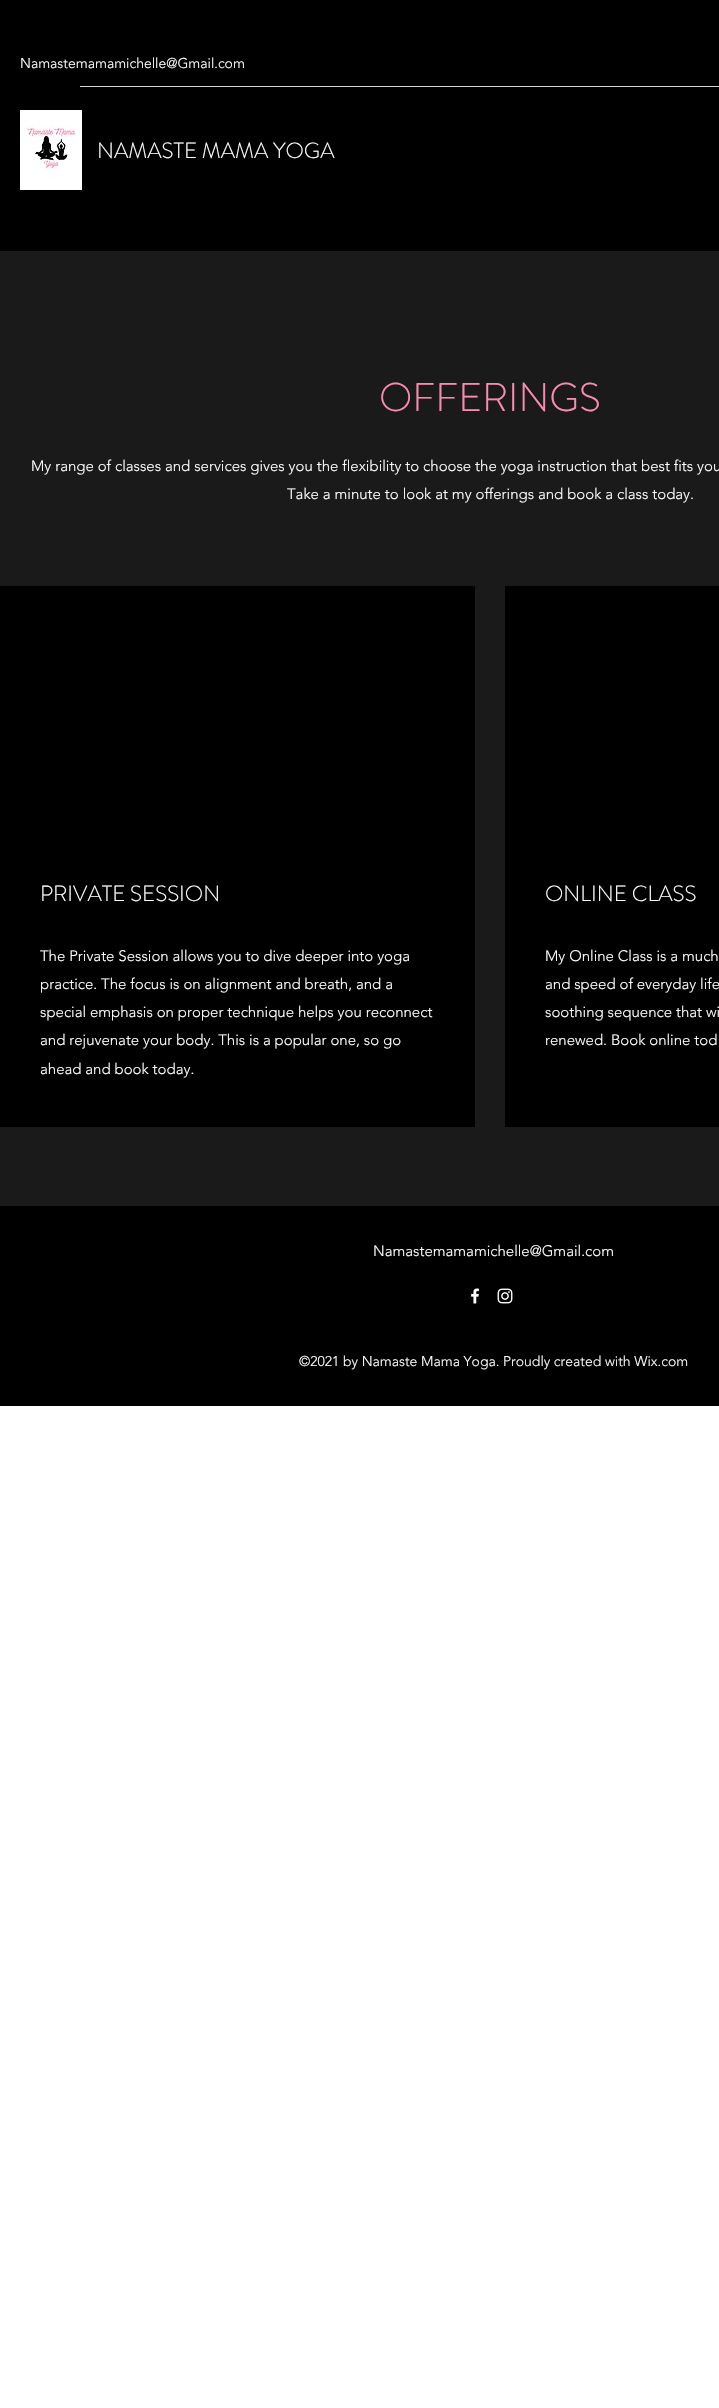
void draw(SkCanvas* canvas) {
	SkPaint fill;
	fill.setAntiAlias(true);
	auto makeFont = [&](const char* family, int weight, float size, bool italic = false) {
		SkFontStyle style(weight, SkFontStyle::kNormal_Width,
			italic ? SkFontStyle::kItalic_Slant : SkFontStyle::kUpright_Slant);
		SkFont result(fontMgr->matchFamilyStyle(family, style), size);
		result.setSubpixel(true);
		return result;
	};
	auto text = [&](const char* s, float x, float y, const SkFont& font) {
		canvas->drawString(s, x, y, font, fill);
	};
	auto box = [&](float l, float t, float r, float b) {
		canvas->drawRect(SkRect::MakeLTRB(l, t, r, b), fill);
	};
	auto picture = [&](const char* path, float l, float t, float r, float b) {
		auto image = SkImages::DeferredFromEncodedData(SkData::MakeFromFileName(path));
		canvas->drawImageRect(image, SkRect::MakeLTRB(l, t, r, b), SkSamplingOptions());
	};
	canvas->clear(0xFFFFFFFF);
	fill.setColor(0xFF000000);
	box(0, 0, 719, 251);
	fill.setColor(0xFFD9D9D9);
	box(80, 86, 719, 87);
	picture("image0.png", 20, 110, 82, 190);
	fill.setColor(0xFF1A1A1A);
	box(0, 251, 719, 1206);
	fill.setColor(0xFF000000);
	box(0, 586, 475, 1127);
	box(505, 586, 719, 1127);
	box(0, 1206, 719, 1406);
	picture("image1.png", 471, 1288, 480, 1304);
	picture("image2.png", 497, 1288, 513, 1304);
	auto font1 = makeFont("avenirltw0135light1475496", 300, 14);
	fill.setColor(0xFFFFFFFF);
	text("Namastemamamichelle@Gmail.com", 20, 68, font1);
	auto font2 = makeFont("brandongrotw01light", 300, 22);
	text("NAMASTE MAMA YOGA", 97, 158, font2);
	auto font3 = makeFont("brandongrotw01light", 300, 40);
	fill.setColor(0xFFF98CAE);
	text("OFFERINGS", 379, 411, font3);
	auto font4 = makeFont("avenirltw0135light1475496", 300, 15);
	fill.setColor(0xFFFFFFFF);
	text("My range of classes and services gives you the flexibility to choose the yoga instruction that best fits you", 31, 471, font4);
	text("Take a minute to look at my offerings and book a class today.", 287, 499, font4);
	text("PRIVATE SESSION", 40, 901, font2);
	text("The Private Session allows you to dive deeper into yoga", 40, 961, font4);
	text("practice. The focus is on alignment and breath, and a", 40, 989, font4);
	text("special emphasis on proper technique helps you reconnect", 40, 1017, font4);
	text("and rejuvenate your body. This is a popular one, so go", 40, 1045, font4);
	text("ahead and book today.", 40, 1074, font4);
	text("ONLINE CLASS", 545, 901, font2);
	text("My Online Class is a much", 545, 961, font4);
	text("and speed of everyday life", 545, 989, font4);
	text("soothing sequence that wi", 545, 1017, font4);
	text("renewed. Book online tod", 545, 1045, font4);
	text("Namastemamamichelle@Gmail.com", 373, 1256, font4);
	text("©2021 by Namaste Mama Yoga. Proudly created with Wix.com", 299, 1366, font1);
}
